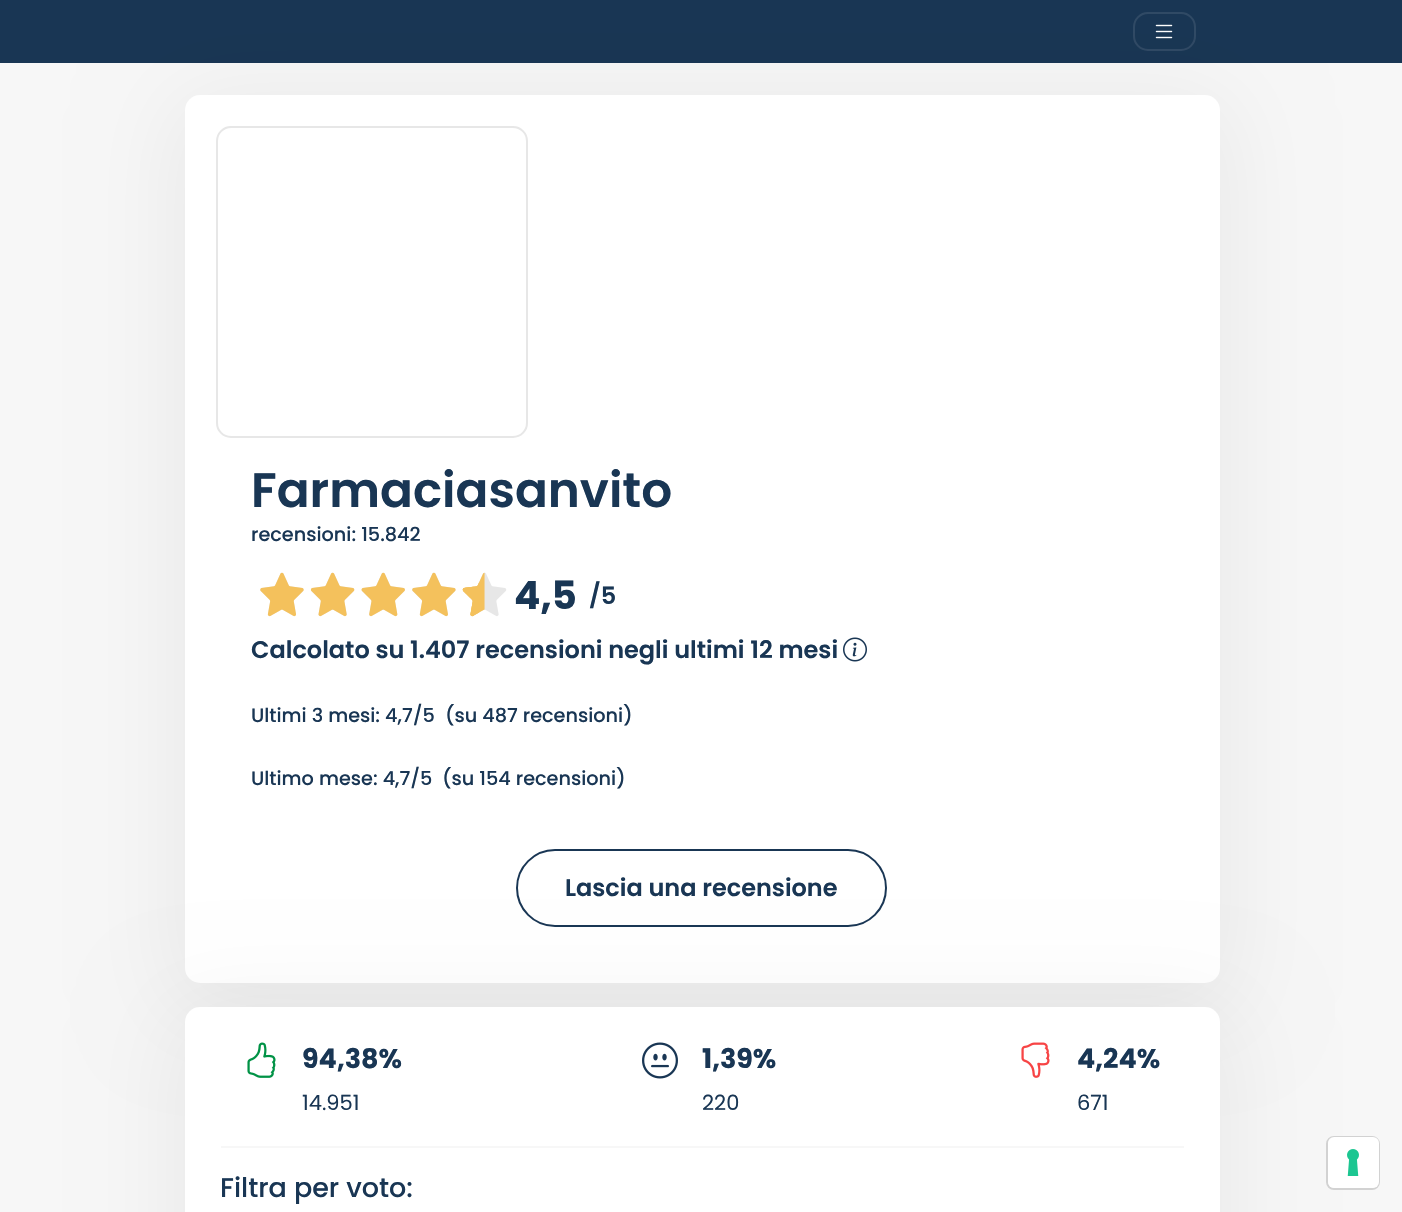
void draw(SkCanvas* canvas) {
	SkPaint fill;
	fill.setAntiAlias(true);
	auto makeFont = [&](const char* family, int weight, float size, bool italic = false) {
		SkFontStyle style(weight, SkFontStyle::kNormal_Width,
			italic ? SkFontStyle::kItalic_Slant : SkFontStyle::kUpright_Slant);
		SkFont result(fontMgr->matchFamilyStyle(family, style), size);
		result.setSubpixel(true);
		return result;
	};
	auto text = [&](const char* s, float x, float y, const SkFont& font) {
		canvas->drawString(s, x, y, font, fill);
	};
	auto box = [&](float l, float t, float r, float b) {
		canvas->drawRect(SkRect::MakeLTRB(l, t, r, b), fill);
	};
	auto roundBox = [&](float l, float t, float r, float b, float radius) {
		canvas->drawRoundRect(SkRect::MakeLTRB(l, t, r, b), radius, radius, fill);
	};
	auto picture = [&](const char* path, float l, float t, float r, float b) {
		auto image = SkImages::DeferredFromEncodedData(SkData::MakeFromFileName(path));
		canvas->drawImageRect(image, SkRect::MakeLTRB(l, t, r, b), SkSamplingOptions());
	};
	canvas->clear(0xFFF7F7F7);
	fill.setColor(0xFF193654);
	box(0, 0, 1402, 63);
	fill.setStyle(SkPaint::kStroke_Style);
	fill.setStrokeWidth(2);
	fill.setColor(0xFF304A65);
	canvas->drawRoundRect(SkRect::MakeLTRB(1134, 13, 1195, 50), 14, 14, fill);
	picture("image0.png", 1155, 24, 1173, 39);
	fill.setStyle(SkPaint::kFill_Style);
	fill.setColor(0x0D000000);
	fill.setMaskFilter(SkMaskFilter::MakeBlur(kNormal_SkBlurStyle, 45));
	canvas->drawRoundRect(SkRect::MakeLTRB(170, 95, 1235, 1013), 30, 30, fill);
	fill.setMaskFilter(nullptr);
	fill.setColor(0xFFFFFFFF);
	roundBox(185, 95, 1220, 983, 15);
	fill.setStyle(SkPaint::kStroke_Style);
	fill.setColor(0xFFE7E7E7);
	canvas->drawRoundRect(SkRect::MakeLTRB(217, 127, 527, 437), 14, 14, fill);
	picture("image1.png", 260, 572, 507, 617);
	picture("image2.png", 843, 637, 867, 662);
	fill.setColor(0xFF193654);
	canvas->drawRoundRect(SkRect::MakeLTRB(517, 850, 886, 926), 38, 38, fill);
	fill.setStyle(SkPaint::kFill_Style);
	fill.setColor(0x0D000000);
	fill.setMaskFilter(SkMaskFilter::MakeBlur(kNormal_SkBlurStyle, 45));
	canvas->drawRoundRect(SkRect::MakeLTRB(170, 1007, 1235, 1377), 30, 30, fill);
	fill.setMaskFilter(nullptr);
	fill.setColor(0xFFFFFFFF);
	roundBox(185, 1007, 1220, 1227, 15);
	picture("image3.png", 247, 1042, 276, 1078);
	picture("image4.png", 642, 1042, 678, 1079);
	picture("image5.png", 1021, 1042, 1050, 1078);
	fill.setColor(0xFFF7F7F7);
	box(221, 1146, 1184, 1148);
	fill.setStyle(SkPaint::kStroke_Style);
	fill.setColor(0xFFD2D2D2);
	canvas->drawRoundRect(SkRect::MakeLTRB(1327, 1137, 1379, 1189), 7, 7, fill);
	fill.setStyle(SkPaint::kFill_Style);
	fill.setColor(0xFFFFFFFF);
	roundBox(1328, 1137, 1379, 1188, 6);
	picture("image6.png", 1347, 1149, 1359, 1176);
	auto font1 = makeFont("Poppins", 600, 48.5f);
	fill.setColor(0xFF193654);
	text("Farmaciasanvito", 251, 507, font1);
	auto font2 = makeFont("Poppins", 500, 19.25f);
	text("recensioni: 15.842", 251, 541, font2);
	auto font3 = makeFont("Poppins", 700, 39);
	text("4,5", 514, 609, font3);
	auto font4 = makeFont("Poppins", 600, 24);
	text("/5", 589, 604, font4);
	text("Calcolato su 1.407 recensioni negli ultimi 12 mesi", 251, 658, font4);
	text("Ultimi 3 mesi: 4,7/5", 251, 722, font2);
	text("(su 487 recensioni)", 445, 722, font2);
	text("Ultimo mese: 4,7/5", 251, 785, font2);
	text("(su 154 recensioni)", 442, 785, font2);
	text("Lascia una recensione", 565, 896, font4);
	auto font5 = makeFont("Poppins", 700, 27);
	text("94,38%", 302, 1068, font5);
	auto font6 = makeFont("Poppins", 400, 21);
	text("14.951", 302, 1110, font6);
	text("1,39%", 702, 1068, font5);
	text("220", 702, 1110, font6);
	text("4,24%", 1077, 1068, font5);
	text("671", 1077, 1110, font6);
	auto font7 = makeFont("Poppins", 500, 27);
	text("Filtra per voto:", 220, 1197, font7);
}
